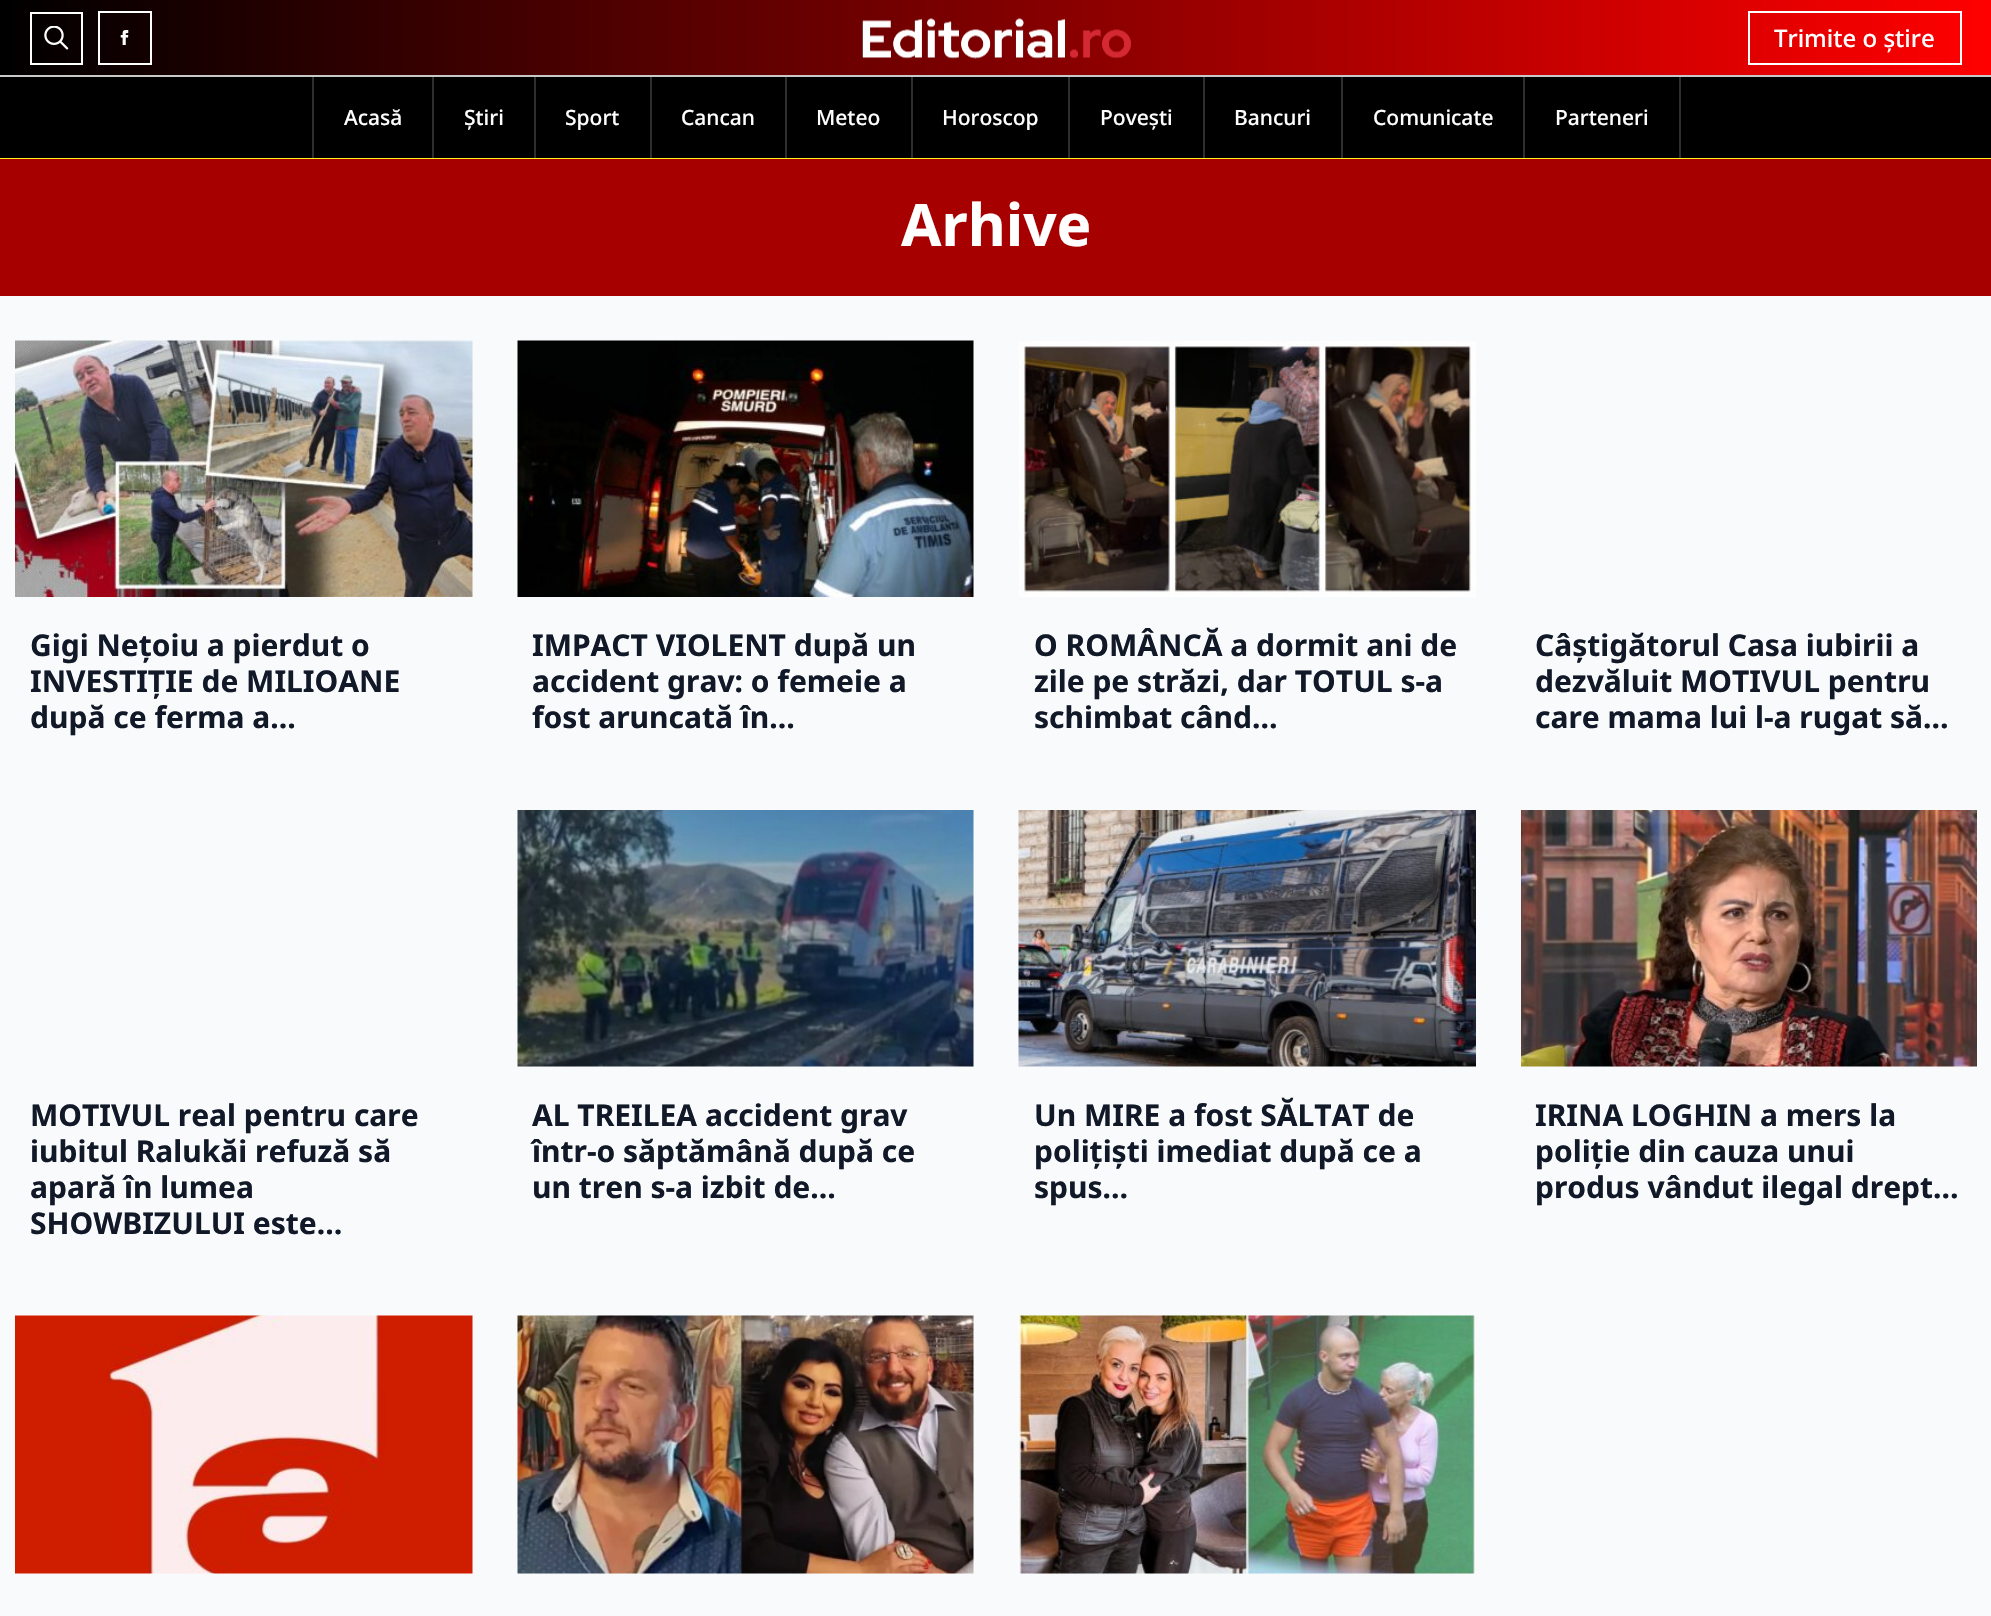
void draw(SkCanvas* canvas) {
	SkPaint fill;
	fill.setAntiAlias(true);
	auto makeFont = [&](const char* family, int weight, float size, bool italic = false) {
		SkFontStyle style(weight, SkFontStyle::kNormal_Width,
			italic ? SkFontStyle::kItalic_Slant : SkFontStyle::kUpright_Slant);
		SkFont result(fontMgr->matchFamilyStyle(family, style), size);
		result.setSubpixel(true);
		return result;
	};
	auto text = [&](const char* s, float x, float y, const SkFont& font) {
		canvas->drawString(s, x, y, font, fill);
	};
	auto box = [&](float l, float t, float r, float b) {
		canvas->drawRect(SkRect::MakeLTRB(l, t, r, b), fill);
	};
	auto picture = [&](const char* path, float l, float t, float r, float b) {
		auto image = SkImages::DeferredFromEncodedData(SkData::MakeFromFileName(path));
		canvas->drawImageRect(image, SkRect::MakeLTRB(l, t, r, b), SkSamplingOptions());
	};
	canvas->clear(0xFFF9FAFB);
	{
		const SkColor colors[] = {0xFF000000, 0xFFFF0000};
		const float stops[] = {0, 1};
		const SkPoint ends[] = {{0, 38}, {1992, 37}};
		fill.setShader(SkGradientShader::MakeLinear(ends, colors, stops, 2, SkTileMode::kClamp));
		fill.setAlpha(255);
	}
	box(0, 0, 1991, 75);
	fill.setShader(nullptr);
	fill.setColor(0xFFC8C8C8);
	box(0, 75, 1991, 77);
	fill.setStyle(SkPaint::kStroke_Style);
	fill.setStrokeWidth(2);
	fill.setColor(0xFFFFFFFF);
	canvas->drawRect(SkRect::MakeLTRB(31, 13, 82, 64), fill);
	picture("image0.png", 44, 26, 69, 50);
	canvas->drawRect(SkRect::MakeLTRB(99, 12, 151, 64), fill);
	picture("image1.png", 120, 30, 129, 45);
	picture("image2.png", 862, 18, 1132, 59);
	canvas->drawRect(SkRect::MakeLTRB(1749, 12, 1961, 64), fill);
	fill.setStyle(SkPaint::kFill_Style);
	fill.setColor(0xFF000000);
	box(0, 77, 1991, 158);
	fill.setColor(0xFFFFF21D);
	box(0, 158, 1991, 159);
	fill.setColor(0xFF2E2E2E);
	box(432, 77, 434, 158);
	box(312, 77, 314, 158);
	box(534, 77, 536, 158);
	box(650, 77, 652, 158);
	box(785, 77, 787, 158);
	box(911, 77, 913, 158);
	box(1068, 77, 1070, 158);
	box(1203, 77, 1205, 158);
	box(1341, 77, 1343, 158);
	box(1523, 77, 1525, 158);
	box(1679, 77, 1681, 158);
	fill.setColor(0xFFA60000);
	box(0, 159, 1991, 296);
	picture("image3.png", 15, 340, 473, 597);
	picture("image4.png", 517, 340, 974, 597);
	picture("image5.png", 1019, 341, 1476, 597);
	picture("image6.png", 517, 810, 974, 1067);
	picture("image7.png", 1018, 810, 1476, 1067);
	picture("image8.png", 1521, 810, 1977, 1067);
	picture("image9.png", 15, 1315, 473, 1574);
	picture("image10.png", 517, 1315, 974, 1574);
	picture("image11.png", 1018, 1315, 1476, 1574);
	auto font1 = makeFont("Noto Sans", 500, 24);
	fill.setColor(0xFFFFFFFF);
	text("Trimite o știre", 1774, 47, font1);
	auto font2 = makeFont("Noto Sans", 500, 21);
	text("Acasă", 344, 125, font2);
	text("Știri", 464, 125, font2);
	text("Sport", 565, 125, font2);
	text("Cancan", 681, 125, font2);
	text("Meteo", 816, 125, font2);
	text("Horoscop", 942, 125, font2);
	text("Povești", 1100, 125, font2);
	text("Bancuri", 1234, 125, font2);
	text("Comunicate", 1373, 125, font2);
	text("Parteneri", 1555, 125, font2);
	auto font3 = makeFont("Noto Sans", 700, 58.5f);
	text("Arhive", 901, 246, font3);
	auto font4 = makeFont("Noto Sans", 700, 30);
	fill.setColor(0xFF111827);
	text("Gigi Nețoiu a pierdut o", 30, 656, font4);
	text("INVESTIȚIE de MILIOANE", 30, 692, font4);
	text("după ce ferma a…", 30, 728, font4);
	text("IMPACT VIOLENT după un", 532, 656, font4);
	text("accident grav: o femeie a", 532, 692, font4);
	text("fost aruncată în…", 532, 728, font4);
	text("O ROMÂNCĂ a dormit ani de", 1034, 656, font4);
	text("zile pe străzi, dar TOTUL s-a", 1034, 692, font4);
	text("schimbat când…", 1034, 728, font4);
	text("Câștigătorul Casa iubirii a", 1535, 656, font4);
	text("dezvăluit MOTIVUL pentru", 1535, 692, font4);
	text("care mama lui l-a rugat să…", 1535, 728, font4);
	text("MOTIVUL real pentru care", 30, 1126, font4);
	text("iubitul Ralukăi refuză să", 30, 1162, font4);
	text("apară în lumea", 30, 1198, font4);
	text("SHOWBIZULUI este…", 30, 1234, font4);
	text("AL TREILEA accident grav", 532, 1126, font4);
	text("într-o săptămână după ce", 532, 1162, font4);
	text("un tren s-a izbit de…", 532, 1198, font4);
	text("Un MIRE a fost SĂLTAT de", 1034, 1126, font4);
	text("polițiști imediat după ce a", 1034, 1162, font4);
	text("spus…", 1034, 1198, font4);
	text("IRINA LOGHIN a mers la", 1535, 1126, font4);
	text("poliție din cauza unui", 1535, 1162, font4);
	text("produs vândut ilegal drept…", 1535, 1198, font4);
}
